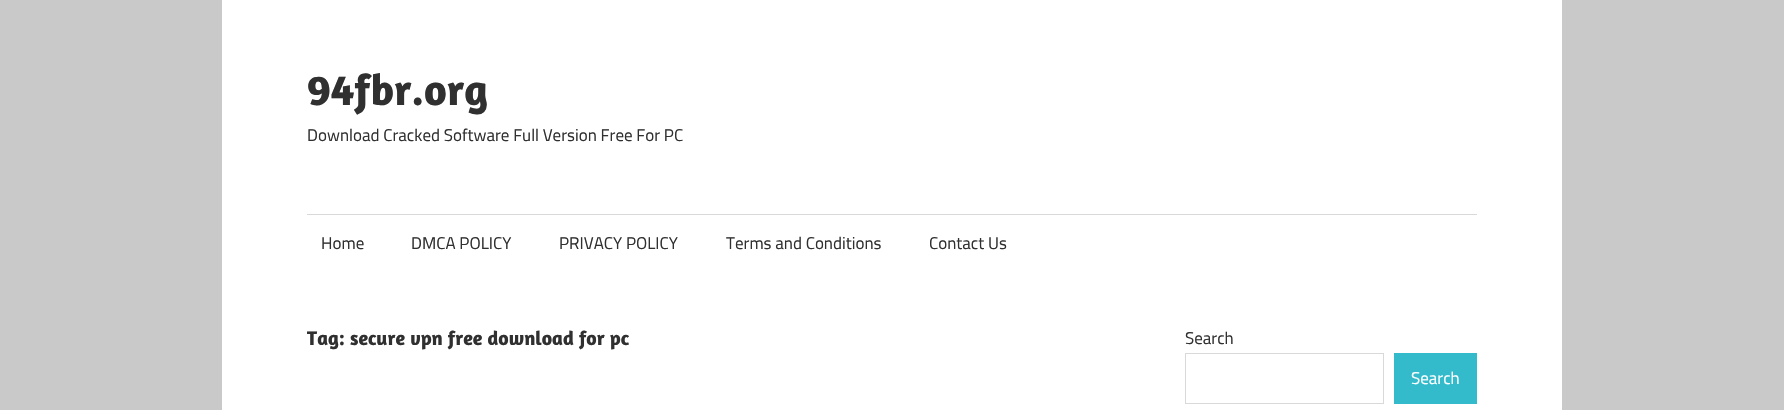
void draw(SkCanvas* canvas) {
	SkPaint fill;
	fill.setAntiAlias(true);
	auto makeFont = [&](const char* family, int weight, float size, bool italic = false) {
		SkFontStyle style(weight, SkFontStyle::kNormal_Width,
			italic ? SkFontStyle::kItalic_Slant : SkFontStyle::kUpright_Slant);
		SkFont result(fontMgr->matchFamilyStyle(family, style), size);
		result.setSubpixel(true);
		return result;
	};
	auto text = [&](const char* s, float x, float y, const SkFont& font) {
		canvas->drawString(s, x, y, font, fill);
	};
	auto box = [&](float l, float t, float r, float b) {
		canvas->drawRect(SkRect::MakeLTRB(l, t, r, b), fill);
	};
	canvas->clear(0xFFC9C9C9);
	fill.setColor(0xFFFFFFFF);
	box(222, 0, 1562, 410);
	fill.setColor(0xFFD9D9D9);
	box(307, 214, 1477, 215);
	fill.setStyle(SkPaint::kStroke_Style);
	fill.setStrokeWidth(1);
	canvas->drawRect(SkRect::MakeLTRB(1185.5f, 353.5f, 1383.5f, 403.5f), fill);
	fill.setStyle(SkPaint::kFill_Style);
	fill.setColor(0xFF33BBCC);
	box(1394, 353, 1477, 404);
	auto font1 = makeFont("Amaranth", 700, 44);
	fill.setColor(0xFF303030);
	text("94fbr.org", 307, 105, font1);
	auto font2 = makeFont("Titillium Web", 400, 17);
	text("Download Cracked Software Full Version Free For PC", 307, 141, font2);
	text("Home", 321, 249, font2);
	text("DMCA POLICY", 411, 249, font2);
	text("PRIVACY POLICY", 559, 249, font2);
	text("Terms and Conditions", 726, 249, font2);
	text("Contact Us", 929, 249, font2);
	auto font3 = makeFont("Amaranth", 700, 20);
	text("Tag: secure vpn free download for pc", 307, 345, font3);
	text("Search", 1185, 344, font2);
	fill.setColor(0xFFFFFFFF);
	text("Search", 1411, 384, font2);
}
